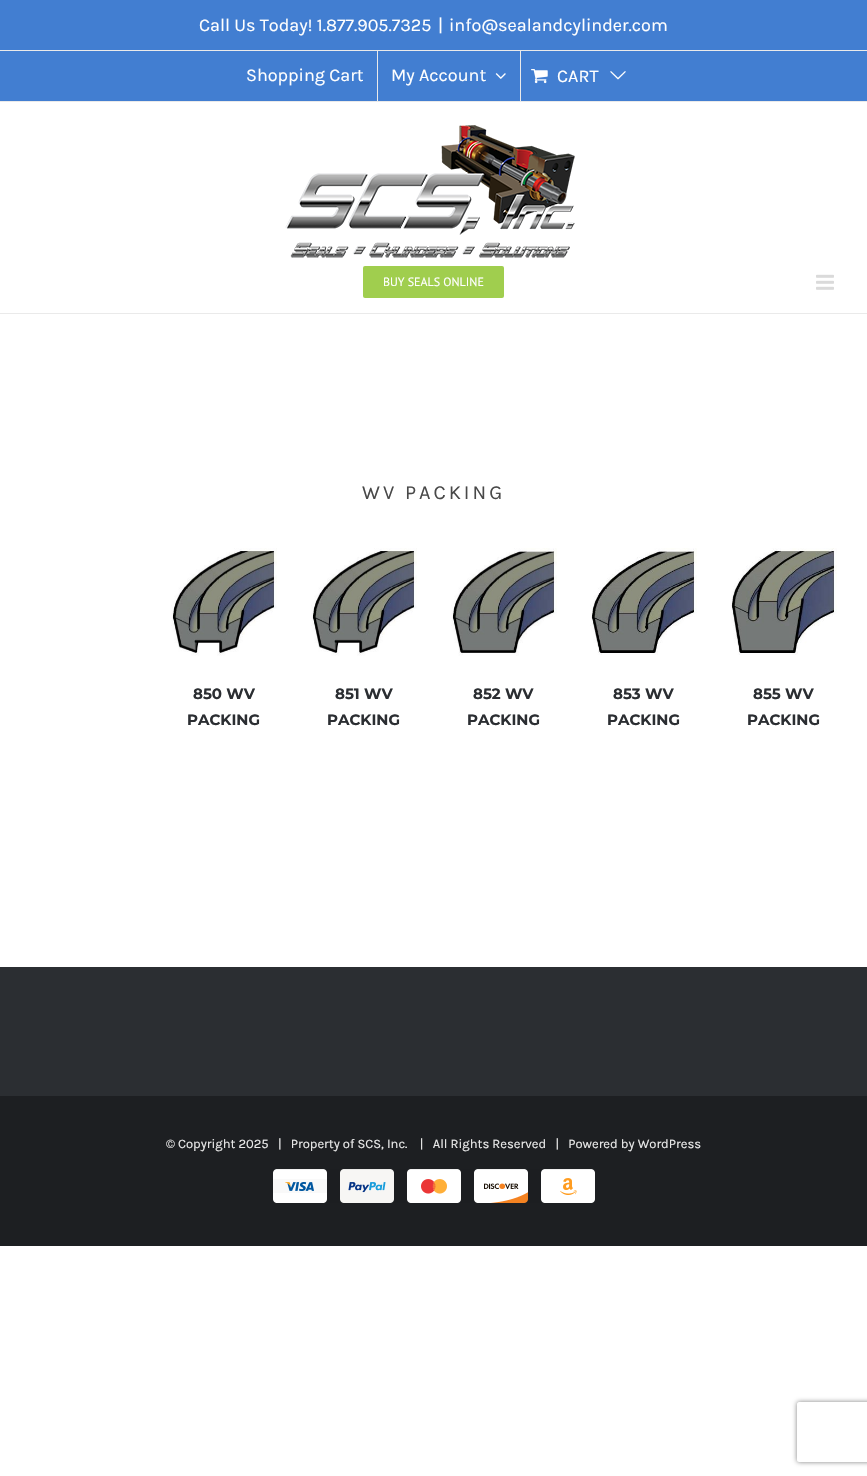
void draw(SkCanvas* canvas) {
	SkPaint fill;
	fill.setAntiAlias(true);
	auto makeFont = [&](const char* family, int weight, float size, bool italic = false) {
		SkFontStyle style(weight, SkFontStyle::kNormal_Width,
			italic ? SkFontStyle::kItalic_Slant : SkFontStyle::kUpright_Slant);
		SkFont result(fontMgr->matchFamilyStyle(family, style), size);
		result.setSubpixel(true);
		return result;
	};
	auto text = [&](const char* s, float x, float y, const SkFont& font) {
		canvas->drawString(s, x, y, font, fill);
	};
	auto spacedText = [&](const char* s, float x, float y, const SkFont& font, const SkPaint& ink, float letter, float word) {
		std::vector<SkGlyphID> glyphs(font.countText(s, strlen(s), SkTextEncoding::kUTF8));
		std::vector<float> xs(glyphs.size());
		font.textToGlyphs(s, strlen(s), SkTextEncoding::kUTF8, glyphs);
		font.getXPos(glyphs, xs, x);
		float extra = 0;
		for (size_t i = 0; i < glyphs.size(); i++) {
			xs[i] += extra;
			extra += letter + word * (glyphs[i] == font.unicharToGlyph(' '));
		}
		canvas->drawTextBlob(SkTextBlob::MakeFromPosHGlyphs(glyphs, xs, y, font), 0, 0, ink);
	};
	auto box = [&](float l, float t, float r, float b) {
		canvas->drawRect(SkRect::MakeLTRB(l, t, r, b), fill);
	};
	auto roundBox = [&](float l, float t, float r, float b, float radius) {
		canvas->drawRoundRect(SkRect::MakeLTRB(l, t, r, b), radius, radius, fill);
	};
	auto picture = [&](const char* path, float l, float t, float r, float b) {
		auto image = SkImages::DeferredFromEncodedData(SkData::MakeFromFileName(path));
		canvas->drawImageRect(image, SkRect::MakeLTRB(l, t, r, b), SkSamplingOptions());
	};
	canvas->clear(0xFFFFFFFF);
	fill.setColor(0xFF427ED1);
	box(0, 0, 867, 101);
	fill.setColor(0xFFEAEAEA);
	box(0, 101, 867, 102);
	box(0, 50, 867, 51);
	box(377, 51, 378, 101);
	picture("image0.png", 495, 73, 506, 79);
	box(520, 51, 521, 101);
	picture("image1.png", 531, 69, 548, 84);
	picture("image2.png", 610, 71, 626, 80);
	box(0, 313, 867, 314);
	picture("image3.png", 285, 125, 575, 258);
	fill.setColor(0xFFA0CE4E);
	roundBox(363, 266, 504, 298, 2);
	picture("image4.png", 816, 274, 834, 290);
	picture("image5.png", 171, 548, 277, 656);
	picture("image5.png", 311, 548, 417, 656);
	picture("image6.png", 451, 548, 557, 656);
	picture("image7.png", 590, 548, 697, 655);
	picture("image8.png", 731, 548, 837, 655);
	fill.setColor(0xFF2B2E32);
	box(0, 967, 867, 1096);
	fill.setColor(0xFF1D1F22);
	box(0, 1096, 867, 1246);
	picture("image9.png", 273, 1169, 595, 1203);
	canvas->save();
	canvas->clipPath(SkPathBuilder(SkPathFillType::kEvenOdd).moveTo(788, 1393).lineTo(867, 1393).lineTo(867, 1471).lineTo(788, 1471).close().moveTo(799, 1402).lineTo(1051, 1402).cubicTo(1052, 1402, 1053, 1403, 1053, 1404).lineTo(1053, 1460).cubicTo(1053, 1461, 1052, 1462, 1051, 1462).lineTo(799, 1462).cubicTo(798, 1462, 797, 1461, 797, 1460).lineTo(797, 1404).cubicTo(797, 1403, 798, 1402, 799, 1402).close().detach(), true);
	fill.setColor(0xFF808080);
	fill.setMaskFilter(SkMaskFilter::MakeBlur(kNormal_SkBlurStyle, 2.5f));
	canvas->drawRoundRect(SkRect::MakeLTRB(797, 1402, 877, 1462), 2, 2, fill);
	fill.setMaskFilter(nullptr);
	canvas->restore();
	auto font1 = makeFont("Karla", 400, 18);
	fill.setColor(0xFFFFFFFF);
	text("Call Us Today! 1.877.905.7325", 199, 31, font1);
	text("|", 438, 31, font1);
	text("info@sealandcylinder.com", 449, 31, font1);
	text("Shopping Cart", 246, 81, font1);
	text("My Account", 391, 81, font1);
	text("CART", 557, 82, font1);
	auto font2 = makeFont("PT Sans", 400, 12);
	text("BUY SEALS ONLINE", 383, 286, font2);
	auto font3 = makeFont("Karla", 400, 20);
	fill.setColor(0xFF494949);
	spacedText("WV PACKING", 362, 499, font3, fill, 3, 0);
	auto font4 = makeFont("Montserrat", 700, 15);
	fill.setColor(0xFF2B2E32);
	text("850 WV", 193, 699, font4);
	text("PACKING", 187, 725, font4);
	text("851 WV", 335, 699, font4);
	text("PACKING", 327, 725, font4);
	text("852 WV", 473, 699, font4);
	text("PACKING", 467, 725, font4);
	text("853 WV", 613, 699, font4);
	text("PACKING", 607, 725, font4);
	text("855 WV", 753, 699, font4);
	text("PACKING", 747, 725, font4);
	auto font5 = makeFont("Karla", 400, 13);
	fill.setColor(0xFFEAEAEA);
	text("© Copyright 2025   |   Property of SCS, Inc.    |   All Rights Reserved   |   Powered by WordPress", 166, 1148, font5);
}
